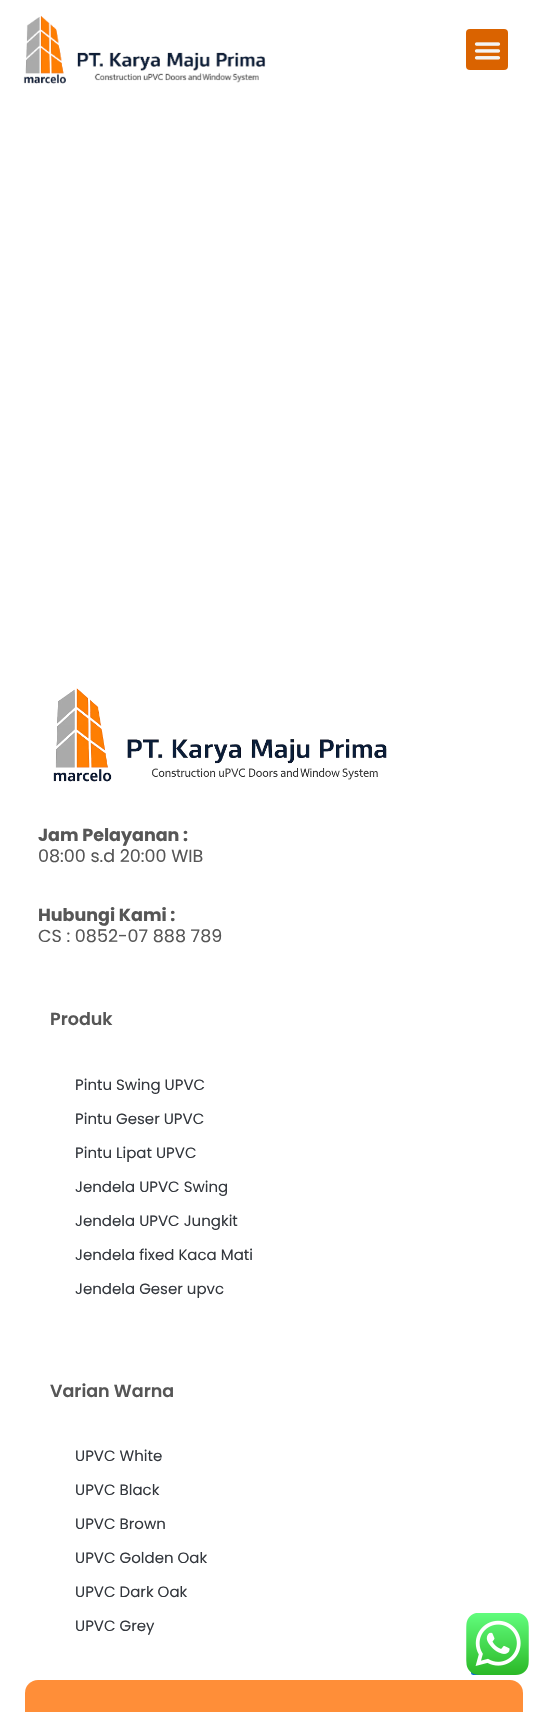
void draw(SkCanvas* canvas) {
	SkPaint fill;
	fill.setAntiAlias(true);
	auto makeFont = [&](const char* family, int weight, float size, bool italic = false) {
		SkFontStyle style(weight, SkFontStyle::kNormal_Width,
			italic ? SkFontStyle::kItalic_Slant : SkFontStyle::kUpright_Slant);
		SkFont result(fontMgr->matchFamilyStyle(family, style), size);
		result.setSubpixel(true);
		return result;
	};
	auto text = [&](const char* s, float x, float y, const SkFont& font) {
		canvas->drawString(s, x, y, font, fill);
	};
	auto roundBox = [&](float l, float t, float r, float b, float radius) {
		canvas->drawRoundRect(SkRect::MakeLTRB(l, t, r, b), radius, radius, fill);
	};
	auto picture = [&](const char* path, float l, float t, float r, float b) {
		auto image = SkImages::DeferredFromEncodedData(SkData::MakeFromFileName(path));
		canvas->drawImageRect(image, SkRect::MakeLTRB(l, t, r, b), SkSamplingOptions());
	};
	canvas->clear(0xFFFFFFFF);
	picture("image0.png", 23, 15, 266, 84);
	fill.setColor(0xFFDA6300);
	roundBox(466, 29, 508, 70, 4);
	picture("image1.png", 474, 42, 501, 60);
	picture("image2.png", 53, 688, 387, 782);
	fill.setColor(0xFFFF8E38);
	roundBox(25, 1680, 523, 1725, 13);
	fill.setColor(0xFF046BD2);
	roundBox(471, 1636, 510, 1675, 2.5f);
	picture("image3.png", 466, 1613, 529, 1675);
	auto font1 = makeFont("Poppins", 700, 17.5f);
	fill.setColor(0xFF565656);
	text("Jam Pelayanan :", 38, 841, font1);
	auto font2 = makeFont("Poppins", 400, 17.5f);
	text("08:00 s.d 20:00 WIB", 38, 862, font2);
	text("Hubungi Kami :", 38, 921, font1);
	text("CS : 0852-07 888 789", 38, 942, font2);
	auto font3 = makeFont("Poppins", 600, 17.5f);
	text("Produk", 50, 1025, font3);
	auto font4 = makeFont("Poppins", 400, 15);
	fill.setColor(0xFF33373D);
	text("Pintu Swing UPVC", 75, 1090, font4);
	text("Pintu Geser UPVC", 75, 1124, font4);
	text("Pintu Lipat UPVC", 75, 1158, font4);
	text("Jendela UPVC Swing", 75, 1192, font4);
	text("Jendela UPVC Jungkit", 75, 1226, font4);
	text("Jendela fixed Kaca Mati", 75, 1260, font4);
	text("Jendela Geser upvc", 75, 1294, font4);
	fill.setColor(0xFF565656);
	text("Varian Warna", 50, 1397, font3);
	fill.setColor(0xFF33373D);
	text("UPVC White", 75, 1461, font4);
	text("UPVC Black", 75, 1495, font4);
	text("UPVC Brown", 75, 1529, font4);
	text("UPVC Golden Oak", 75, 1563, font4);
	text("UPVC Dark Oak", 75, 1597, font4);
	text("UPVC Grey", 75, 1631, font4);
}
